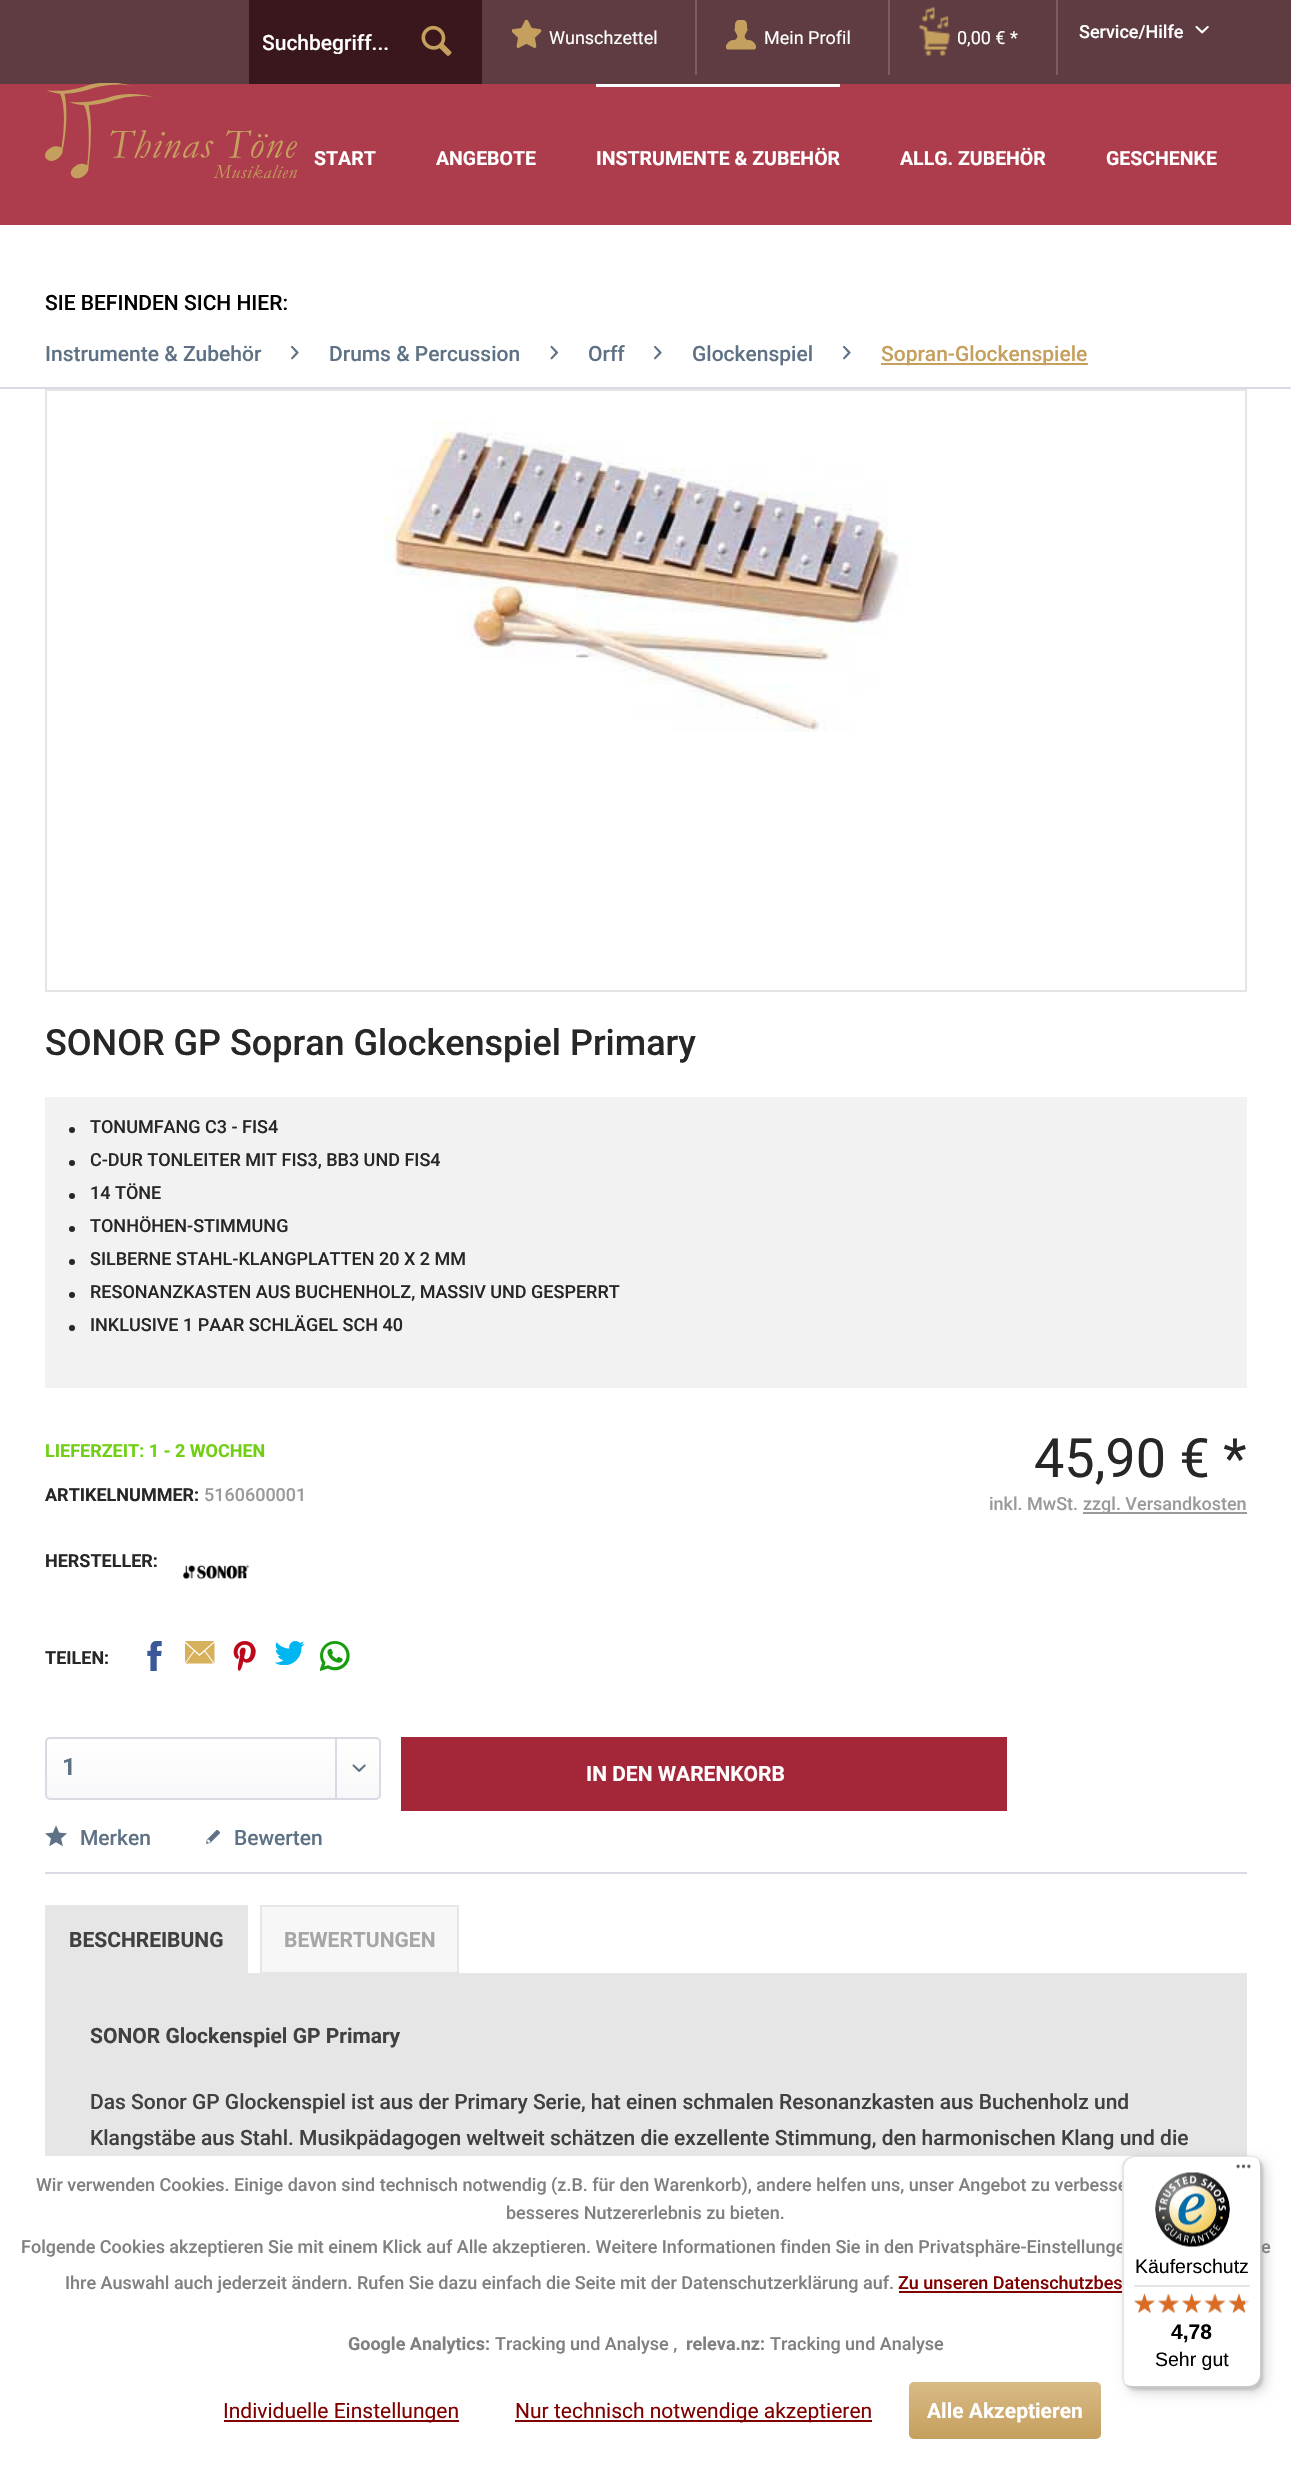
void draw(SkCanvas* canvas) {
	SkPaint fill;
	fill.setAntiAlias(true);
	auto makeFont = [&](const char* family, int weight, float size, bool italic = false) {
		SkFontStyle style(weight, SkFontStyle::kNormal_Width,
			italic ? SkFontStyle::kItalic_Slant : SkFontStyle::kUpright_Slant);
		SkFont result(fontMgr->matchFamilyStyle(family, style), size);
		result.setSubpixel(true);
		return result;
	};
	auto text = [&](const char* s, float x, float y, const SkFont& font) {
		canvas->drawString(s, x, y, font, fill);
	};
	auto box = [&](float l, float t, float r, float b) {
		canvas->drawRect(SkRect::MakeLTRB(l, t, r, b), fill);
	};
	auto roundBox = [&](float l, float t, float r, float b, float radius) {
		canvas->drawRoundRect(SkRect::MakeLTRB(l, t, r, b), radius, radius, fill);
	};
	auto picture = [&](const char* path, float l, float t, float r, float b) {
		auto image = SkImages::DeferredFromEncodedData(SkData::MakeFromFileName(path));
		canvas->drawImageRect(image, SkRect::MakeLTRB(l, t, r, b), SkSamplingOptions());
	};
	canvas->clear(0xFFFFFFFF);
	fill.setColor(0xFF5E3C41);
	box(0, 0, 1291, 84);
	fill.setColor(0xFF39171C);
	box(249, 0, 482, 84);
	picture("image0.png", 421, 25, 452, 56);
	picture("image1.png", 512, 20, 542, 48);
	fill.setColor(0xFF7D5C61);
	box(695, 0, 697, 75);
	picture("image2.png", 726, 20, 756, 50);
	box(888, 0, 890, 75);
	picture("image3.png", 919, 7, 950, 56);
	box(1056, 0, 1058, 75);
	picture("image4.png", 1195, 26, 1209, 34);
	fill.setColor(0xFFAD3D4D);
	box(0, 84, 1291, 225);
	picture("image5.png", 45, 83, 297, 179);
	fill.setColor(0xFFFFFFFF);
	box(596, 84, 840, 87);
	fill.setColor(0xFFDADAE5);
	box(0, 387, 1291, 389);
	picture("image6.png", 291, 345, 299, 360);
	picture("image7.png", 550, 345, 559, 360);
	picture("image6.png", 654, 345, 662, 360);
	picture("image6.png", 843, 345, 851, 360);
	fill.setColor(0xFFC59F5D);
	box(881, 363, 1088, 365);
	fill.setStyle(SkPaint::kStroke_Style);
	fill.setStrokeWidth(2);
	fill.setColor(0xFFE5E5E5);
	canvas->drawRect(SkRect::MakeLTRB(46, 390, 1246, 991), fill);
	picture("image8.png", 384, 420, 909, 732);
	fill.setStyle(SkPaint::kFill_Style);
	fill.setColor(0xFFF2F2F2);
	box(45, 1097, 1247, 1388);
	fill.setColor(0xFF272727);
	canvas->drawCircle(72, 1130, 3, fill);
	canvas->drawCircle(72, 1163, 3, fill);
	canvas->drawCircle(72, 1196, 3, fill);
	canvas->drawCircle(72, 1229, 3, fill);
	canvas->drawCircle(72, 1262, 3, fill);
	canvas->drawCircle(72, 1295, 3, fill);
	canvas->drawCircle(72, 1328, 3, fill);
	picture("image9.png", 182, 1564, 250, 1580);
	fill.setColor(0xFF9A9A9A);
	box(1083, 1512, 1247, 1514);
	picture("image10.png", 147, 1641, 162, 1671);
	picture("image11.png", 185, 1641, 215, 1664);
	picture("image12.png", 233, 1641, 256, 1671);
	picture("image13.png", 275, 1641, 305, 1665);
	picture("image14.png", 320, 1641, 350, 1671);
	{
		const SkColor colors[] = {0xFFFFFFFF, 0xFFF8F8FA};
		const float stops[] = {0, 1};
		const SkPoint ends[] = {{213, 1739}, {213, 1799}};
		fill.setShader(SkGradientShader::MakeLinear(ends, colors, stops, 2, SkTileMode::kClamp));
		fill.setAlpha(255);
	}
	roundBox(47, 1739, 380, 1799, 3);
	fill.setStyle(SkPaint::kStroke_Style);
	fill.setShader(nullptr);
	fill.setColor(0xFFDADAE5);
	canvas->drawRoundRect(SkRect::MakeLTRB(46, 1738, 380, 1799), 4, 4, fill);
	fill.setStyle(SkPaint::kFill_Style);
	box(335, 1739, 337, 1799);
	picture("image15.png", 352, 1764, 366, 1772);
	fill.setColor(0xFFA42739);
	box(401, 1737, 1007, 1811);
	fill.setColor(0xFFDADAE5);
	box(45, 1872, 1247, 1874);
	picture("image16.png", 45, 1825, 67, 1847);
	picture("image17.png", 206, 1829, 220, 1844);
	fill.setColor(0xFFE6E6E6);
	box(45, 1905, 248, 1973);
	box(45, 1973, 1247, 2156);
	fill.setColor(0xFFF7F7F7);
	canvas->drawRect(SkRect::MakeLTRB(261, 1906, 458, 1973), fill);
	fill.setStyle(SkPaint::kStroke_Style);
	fill.setColor(0xFFE6E6E6);
	canvas->drawRect(SkRect::MakeLTRB(261, 1906, 458, 1973), fill);
	fill.setStyle(SkPaint::kFill_Style);
	fill.setColor(0xFF800000);
	box(899, 2291, 1122, 2293);
	box(224, 2420, 459, 2422);
	box(515, 2420, 872, 2422);
	{
		const SkColor colors[] = {0xFFD9BB86, 0xFFC59F5D};
		const float stops[] = {0, 1};
		const SkPoint ends[] = {{1005, 2382}, {1005, 2439}};
		fill.setShader(SkGradientShader::MakeLinear(ends, colors, stops, 2, SkTileMode::kClamp));
		fill.setAlpha(255);
	}
	roundBox(909, 2382, 1101, 2439, 5);
	fill.setShader(nullptr);
	fill.setColor(0x26000000);
	fill.setMaskFilter(SkMaskFilter::MakeBlur(kNormal_SkBlurStyle, 6));
	canvas->drawRoundRect(SkRect::MakeLTRB(1127, 2160, 1266, 2393), 12, 12, fill);
	fill.setMaskFilter(nullptr);
	fill.setMaskFilter(SkMaskFilter::MakeBlur(kNormal_SkBlurStyle, 1.5f));
	canvas->drawRoundRect(SkRect::MakeLTRB(1124, 2157, 1263, 2390), 12, 12, fill);
	fill.setMaskFilter(nullptr);
	canvas->save();
	canvas->clipRect(SkRect::MakeLTRB(263, 30, 419, 54));
	auto font1 = makeFont("Roboto", 500, 21);
	fill.setColor(0xFFFFFFFF);
	text("Suchbegriff...", 262, 50, font1);
	canvas->restore();
	auto font2 = makeFont("Roboto", 400, 18);
	text("Wunschzettel", 549, 44, font2);
	text("Mein Profil", 764, 44, font2);
	text("0,00 € *", 957, 44, font2);
	auto font3 = makeFont("Roboto", 500, 18);
	text("Service/Hilfe", 1079, 38, font3);
	auto font4 = makeFont("Roboto", 700, 19.5f);
	text("START", 314, 165, font4);
	text("ANGEBOTE", 436, 165, font4);
	text("INSTRUMENTE & ZUBEHÖR", 596, 165, font4);
	text("ALLG. ZUBEHÖR", 900, 165, font4);
	text("GESCHENKE", 1106, 165, font4);
	fill.setColor(0xFF000000);
	text("SIE BEFINDEN SICH HIER:", 45, 310, font1);
	fill.setColor(0xFF5F7285);
	text("Instrumente & Zubehör", 45, 361, font1);
	text("Drums & Percussion", 329, 361, font1);
	text("Orff", 588, 361, font1);
	text("Glockenspiel", 692, 361, font1);
	fill.setColor(0xFFC59F5D);
	text("Sopran-Glockenspiele", 881, 361, font1);
	auto font5 = makeFont("Roboto", 500, 36);
	fill.setColor(0xFF272727);
	text("SONOR GP Sopran Glockenspiel Primary", 45, 1055, font5);
	text("TONUMFANG C3 - FIS4", 90, 1133, font3);
	text("C-DUR TONLEITER MIT FIS3, BB3 UND FIS4", 90, 1166, font3);
	text("14 TÖNE", 90, 1199, font3);
	text("TONHÖHEN-STIMMUNG", 90, 1232, font3);
	text("SILBERNE STAHL-KLANGPLATTEN 20 X 2 MM", 90, 1265, font3);
	text("RESONANZKASTEN AUS BUCHENHOLZ, MASSIV UND GESPERRT", 90, 1298, font3);
	text("INKLUSIVE 1 PAAR SCHLÄGEL SCH 40", 90, 1331, font3);
	auto font6 = makeFont("Roboto", 700, 18);
	fill.setColor(0xFF6FCF12);
	text("LIEFERZEIT: 1 - 2 WOCHEN", 45, 1457, font6);
	fill.setColor(0xFF272727);
	text("ARTIKELNUMMER:", 45, 1501, font6);
	fill.setColor(0xFF9A9A9A);
	text("5160600001", 204, 1501, font3);
	fill.setColor(0xFF272727);
	text("HERSTELLER:", 45, 1567, font6);
	auto font7 = makeFont("Roboto", 400, 54);
	text("45,90 € *", 1034, 1477, font7);
	fill.setColor(0xFF9A9A9A);
	text("inkl. MwSt.", 989, 1510, font3);
	text("zzgl. Versandkosten", 1083, 1510, font3);
	fill.setColor(0xFF272727);
	text("TEILEN:", 45, 1664, font6);
	auto font8 = makeFont("Roboto", 700, 24);
	fill.setColor(0xFF5F7285);
	text("1", 62, 1775, font8);
	auto font9 = makeFont("Roboto", 700, 21);
	fill.setColor(0xFFFFFFFF);
	text("IN DEN WARENKORB", 586, 1781, font9);
	fill.setColor(0xFF5F7285);
	text("Merken", 80, 1845, font1);
	text("Bewerten", 234, 1845, font1);
	fill.setColor(0xFF404040);
	text("BESCHREIBUNG", 69, 1947, font9);
	fill.setColor(0xFFA6A6A6);
	text("BEWERTUNGEN", 284, 1947, font9);
	fill.setColor(0xFF404040);
	text("SONOR Glockenspiel GP Primary", 90, 2043, font9);
	text("Das Sonor GP Glockenspiel ist aus der Primary Serie, hat einen schmalen Resonanzkasten aus Buchenholz und", 90, 2109, font1);
	text("Klangstäbe aus Stahl. Musikpädagogen weltweit schätzen die exzellente Stimmung, den harmonischen Klang und die", 90, 2145, font1);
	fill.setColor(0xFF808080);
	text("Wir verwenden Cookies. Einige davon sind technisch notwendig (z.B. für den Warenkorb), andere helfen uns, unser Angebot zu verbesse", 36, 2191, font3);
	text("besseres Nutzererlebnis zu bieten.", 506, 2219, font3);
	text("Folgende Cookies akzeptieren Sie mit einem Klick auf Alle akzeptieren. Weitere Informationen finden Sie in den Privatsphäre-Einstellunge", 21, 2253, font3);
	text("e", 1261, 2253, font3);
	text("Ihre Auswahl auch jederzeit ändern. Rufen Sie dazu einfach die Seite mit der Datenschutzerklärung auf.", 65, 2289, font3);
	fill.setColor(0xFF800000);
	text("Zu unseren Datenschutzbes", 898, 2289, font3);
	fill.setColor(0xFF808080);
	text("Google Analytics:", 348, 2350, font6);
	text("Tracking und Analyse ,", 495, 2350, font3);
	text("releva.nz:", 686, 2350, font6);
	text("Tracking und Analyse", 770, 2350, font3);
	auto font10 = makeFont("Roboto", 400, 21);
	fill.setColor(0xFF800000);
	text("Individuelle Einstellungen", 223, 2418, font10);
	text("Nur technisch notwendige akzeptieren", 515, 2418, font10);
	fill.setColor(0xFFFFFFFF);
	text("Alle Akzeptieren", 927, 2418, font9);
	roundBox(1122, 2156, 1262, 2388, 12);
	fill.setColor(0x1A000000);
	canvas->drawPath(SkPathBuilder().moveTo(1136, 2157).lineTo(1251, 2157).cubicTo(1254, 2157, 1256, 2158, 1258, 2159).cubicTo(1256, 2157, 1253, 2156, 1250, 2156).lineTo(1134, 2156).cubicTo(1127, 2156, 1122, 2161, 1122, 2168).lineTo(1122, 2376).cubicTo(1122, 2380, 1124, 2383, 1127, 2386).cubicTo(1125, 2383, 1124, 2381, 1124, 2378).lineTo(1124, 2169).cubicTo(1124, 2162, 1129, 2157, 1136, 2157).close().detach(), fill);
	fill.setColor(0x33000000);
	canvas->drawPath(SkPathBuilder().moveTo(1124, 2383).cubicTo(1127, 2386, 1130, 2388, 1134, 2388).lineTo(1250, 2388).cubicTo(1257, 2388, 1262, 2383, 1262, 2376).lineTo(1262, 2168).cubicTo(1262, 2164, 1260, 2161, 1258, 2159).cubicTo(1259, 2161, 1260, 2163, 1260, 2166).lineTo(1260, 2374).cubicTo(1260, 2381, 1255, 2386, 1248, 2386).lineTo(1132, 2386).cubicTo(1129, 2386, 1127, 2385, 1124, 2383).close().detach(), fill);
	fill.setColor(0x33323232);
	canvas->drawPath(SkPathBuilder().moveTo(1126, 2385).cubicTo(1128, 2387, 1131, 2388, 1134, 2388).lineTo(1250, 2388).cubicTo(1257, 2388, 1262, 2383, 1262, 2376).lineTo(1262, 2168).cubicTo(1262, 2164, 1260, 2161, 1258, 2159).cubicTo(1260, 2161, 1261, 2164, 1261, 2167).lineTo(1261, 2375).cubicTo(1261, 2382, 1255, 2387, 1249, 2387).lineTo(1133, 2387).cubicTo(1130, 2387, 1128, 2386, 1126, 2385).close().detach(), fill);
	fill.setColor(0x4DFFFFFF);
	canvas->drawPath(SkPathBuilder().moveTo(1125, 2384).cubicTo(1127, 2386, 1130, 2388, 1134, 2388).lineTo(1250, 2388).cubicTo(1257, 2388, 1262, 2383, 1262, 2376).lineTo(1262, 2168).cubicTo(1262, 2164, 1260, 2161, 1258, 2159).cubicTo(1260, 2161, 1261, 2164, 1261, 2167).lineTo(1261, 2375).cubicTo(1261, 2382, 1255, 2387, 1249, 2387).lineTo(1133, 2387).cubicTo(1130, 2387, 1127, 2386, 1125, 2384).close().detach(), fill);
	picture("image18.png", 1236, 2164, 1251, 2169);
	picture("image19.png", 1155, 2172, 1230, 2247);
	auto font11 = makeFont("Liberation Sans", 400, 19.5f);
	fill.setColor(0xFF000000);
	text("Käuferschutz", 1135, 2273, font11);
	fill.setColor(0xFFE5E5E5);
	box(1134, 2285, 1250, 2287);
	picture("image20.png", 1134, 2293, 1155, 2313);
	picture("image21.png", 1158, 2294, 1179, 2313);
	picture("image22.png", 1182, 2293, 1201, 2313);
	picture("image23.png", 1205, 2294, 1225, 2313);
	picture("image24.png", 1229, 2293, 1249, 2313);
	picture("image25.png", 1134, 2293, 1155, 2313);
	picture("image26.png", 1158, 2293, 1179, 2313);
	picture("image27.png", 1182, 2293, 1201, 2313);
	picture("image28.png", 1204, 2293, 1226, 2313);
	picture("image29.png", 1229, 2293, 1245, 2313);
	auto font12 = makeFont("Liberation Sans", 700, 21);
	fill.setColor(0xFF000000);
	text("4,78", 1171, 2339, font12);
	text("Sehr gut", 1155, 2366, font11);
}
